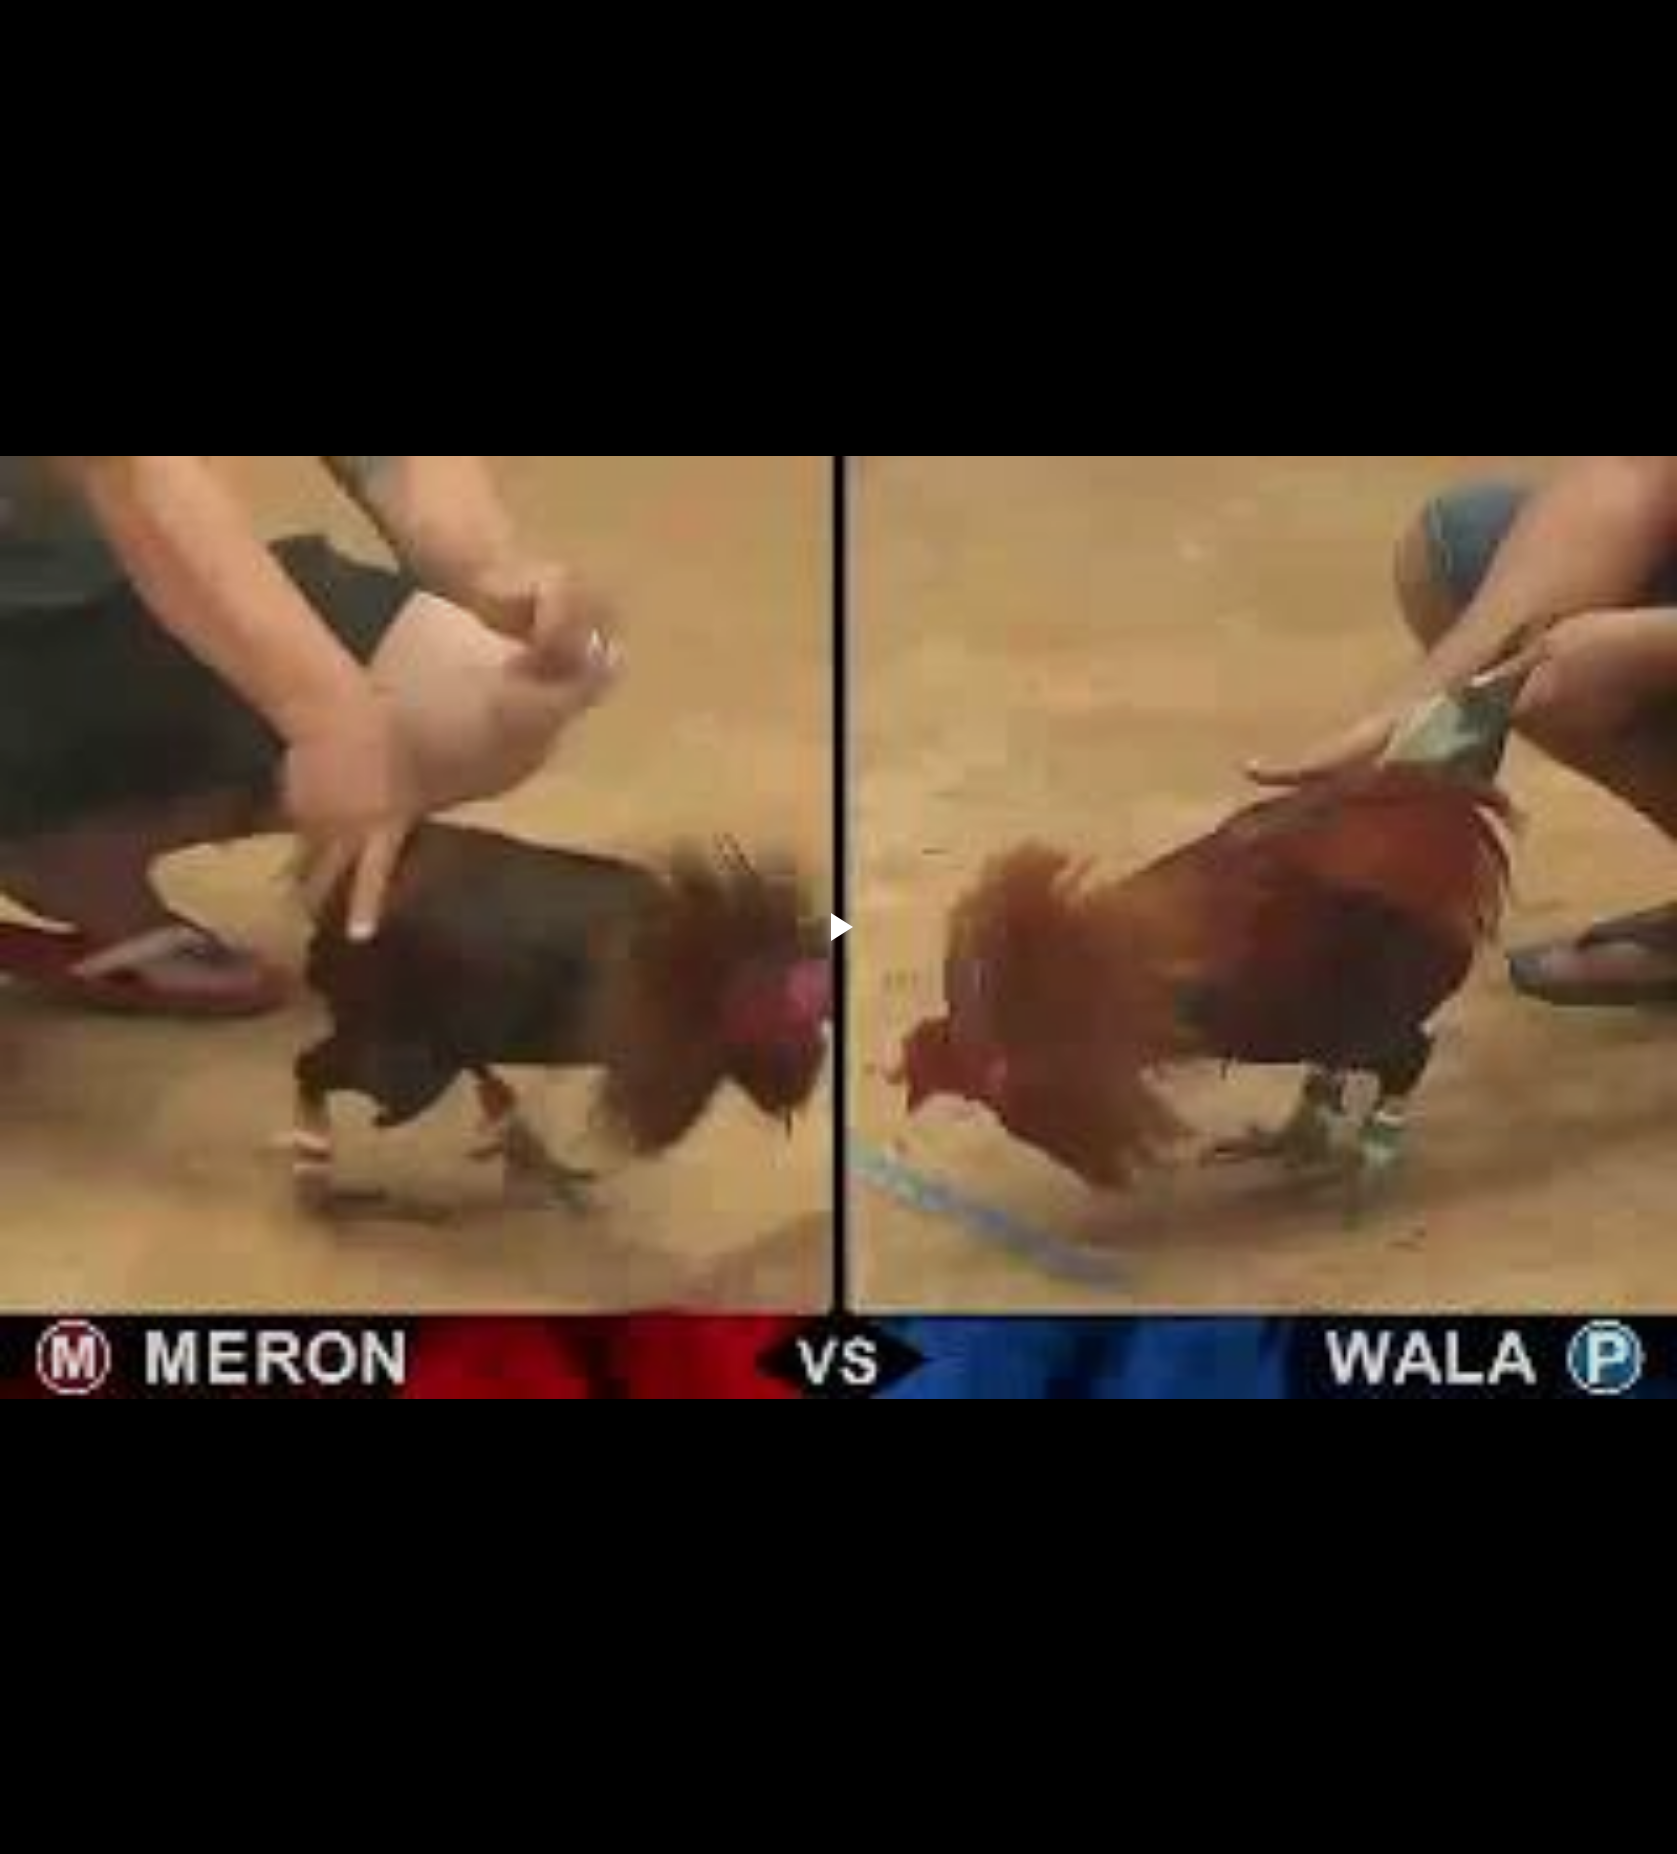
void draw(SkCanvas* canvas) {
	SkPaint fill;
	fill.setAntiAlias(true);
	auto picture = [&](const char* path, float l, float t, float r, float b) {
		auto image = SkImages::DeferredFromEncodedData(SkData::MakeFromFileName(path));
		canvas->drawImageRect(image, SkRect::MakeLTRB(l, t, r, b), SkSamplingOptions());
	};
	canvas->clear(0xFF000000);
	picture("image0.png", 0, 456, 1677, 1399);
	picture("image1.png", 831, 913, 853, 941);
}
